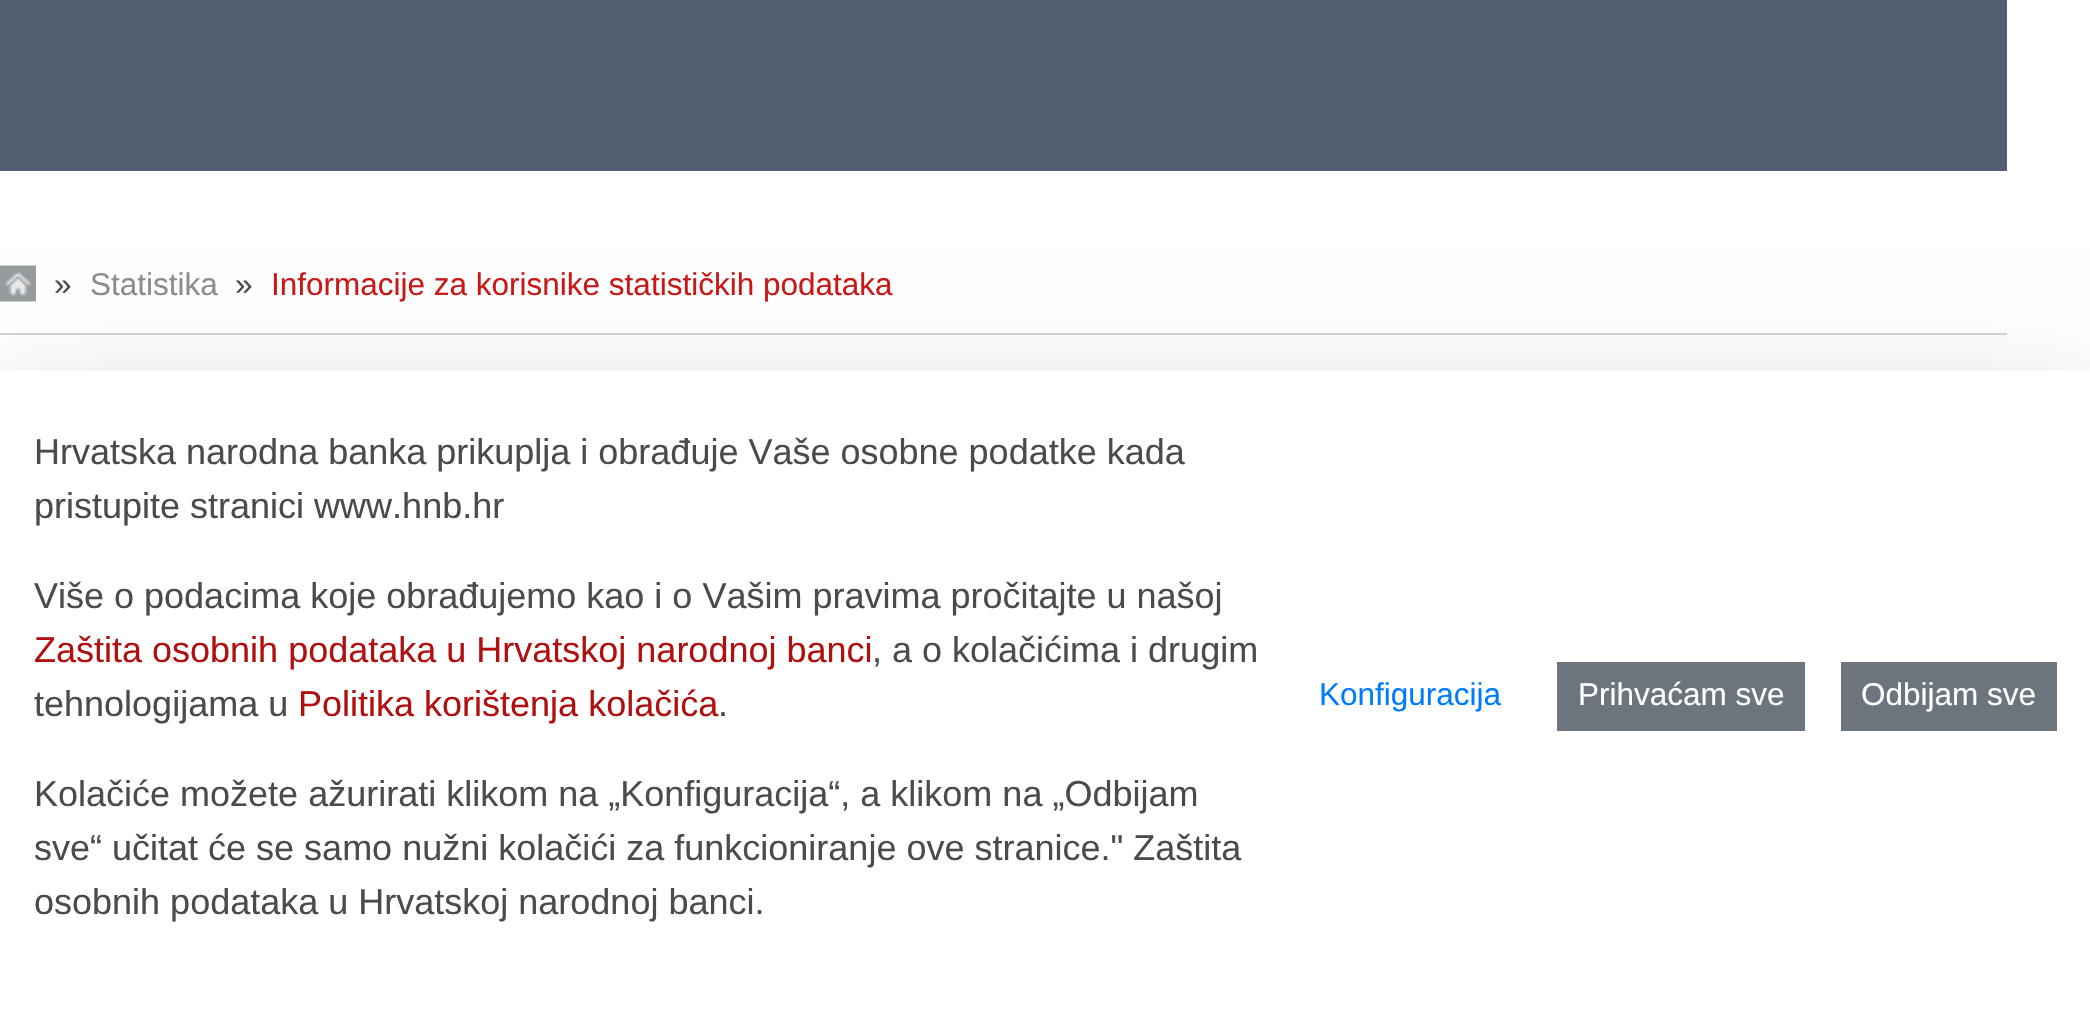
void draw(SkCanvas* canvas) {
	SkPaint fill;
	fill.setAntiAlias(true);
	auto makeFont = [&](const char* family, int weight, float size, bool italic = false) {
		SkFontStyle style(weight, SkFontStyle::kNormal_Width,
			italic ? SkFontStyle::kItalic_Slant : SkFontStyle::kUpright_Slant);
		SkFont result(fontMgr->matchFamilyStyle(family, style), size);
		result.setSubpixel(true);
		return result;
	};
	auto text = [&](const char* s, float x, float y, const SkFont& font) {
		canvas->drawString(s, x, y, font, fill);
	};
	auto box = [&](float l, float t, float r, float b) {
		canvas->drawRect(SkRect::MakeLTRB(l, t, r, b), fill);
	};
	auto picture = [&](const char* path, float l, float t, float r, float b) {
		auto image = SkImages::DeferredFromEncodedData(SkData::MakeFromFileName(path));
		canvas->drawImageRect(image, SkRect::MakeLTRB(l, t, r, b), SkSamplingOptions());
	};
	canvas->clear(0xFFFFFFFF);
	fill.setColor(0xFF506070);
	box(0, 0, 2007, 171);
	fill.setColor(0xFFD4D4D8);
	box(0, 333, 2007, 335);
	picture("image0.png", 0, 265, 36, 302);
	fill.setColor(0x2E000000);
	fill.setMaskFilter(SkMaskFilter::MakeBlur(kNormal_SkBlurStyle, 54));
	canvas->drawRect(SkRect::MakeLTRB(0, 407, 2090, 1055), fill);
	fill.setMaskFilter(nullptr);
	fill.setColor(0xFFFFFFFF);
	box(0, 371, 2090, 1019);
	fill.setColor(0xFF6C757D);
	box(1557, 662, 1805, 731);
	box(1841, 662, 2057, 731);
	auto font1 = makeFont("Liberation Sans", 400, 31.5f);
	fill.setColor(0xFF484C50);
	text("»", 54, 295, font1);
	fill.setColor(0xFF8A8C90);
	text("Statistika", 90, 295, font1);
	fill.setColor(0xFF484C50);
	text("»", 235, 295, font1);
	fill.setColor(0xFFC81818);
	text("Informacije za korisnike statističkih podataka", 271, 295, font1);
	auto font2 = makeFont("Liberation Sans", 400, 36);
	fill.setColor(0xFF484C50);
	text("Hrvatska narodna banka prikuplja i obrađuje Vaše osobne podatke kada", 34, 464, font2);
	text("pristupite stranici www.hnb.hr", 34, 518, font2);
	text("Više o podacima koje obrađujemo kao i o Vašim pravima pročitajte u našoj", 34, 608, font2);
	fill.setColor(0xFFB01010);
	text("Zaštita osobnih podataka u Hrvatskoj narodnoj banci", 34, 662, font2);
	fill.setColor(0xFF484C50);
	text(", a o kolačićima i drugim", 872, 662, font2);
	text("tehnologijama u", 34, 716, font2);
	fill.setColor(0xFFB01010);
	text("Politika korištenja kolačića", 298, 716, font2);
	fill.setColor(0xFF484C50);
	text(".", 718, 716, font2);
	text("Kolačiće možete ažurirati klikom na „Konfiguracija“, a klikom na „Odbijam", 34, 806, font2);
	text("sve“ učitat će se samo nužni kolačići za funkcioniranje ove stranice.\" Zaštita", 34, 860, font2);
	text("osobnih podataka u Hrvatskoj narodnoj banci.", 34, 914, font2);
	fill.setColor(0xFF007BFF);
	text("Konfiguracija", 1319, 705, font1);
	fill.setColor(0xFFFFFFFF);
	text("Prihvaćam sve", 1578, 705, font1);
	text("Odbijam sve", 1861, 705, font1);
}
